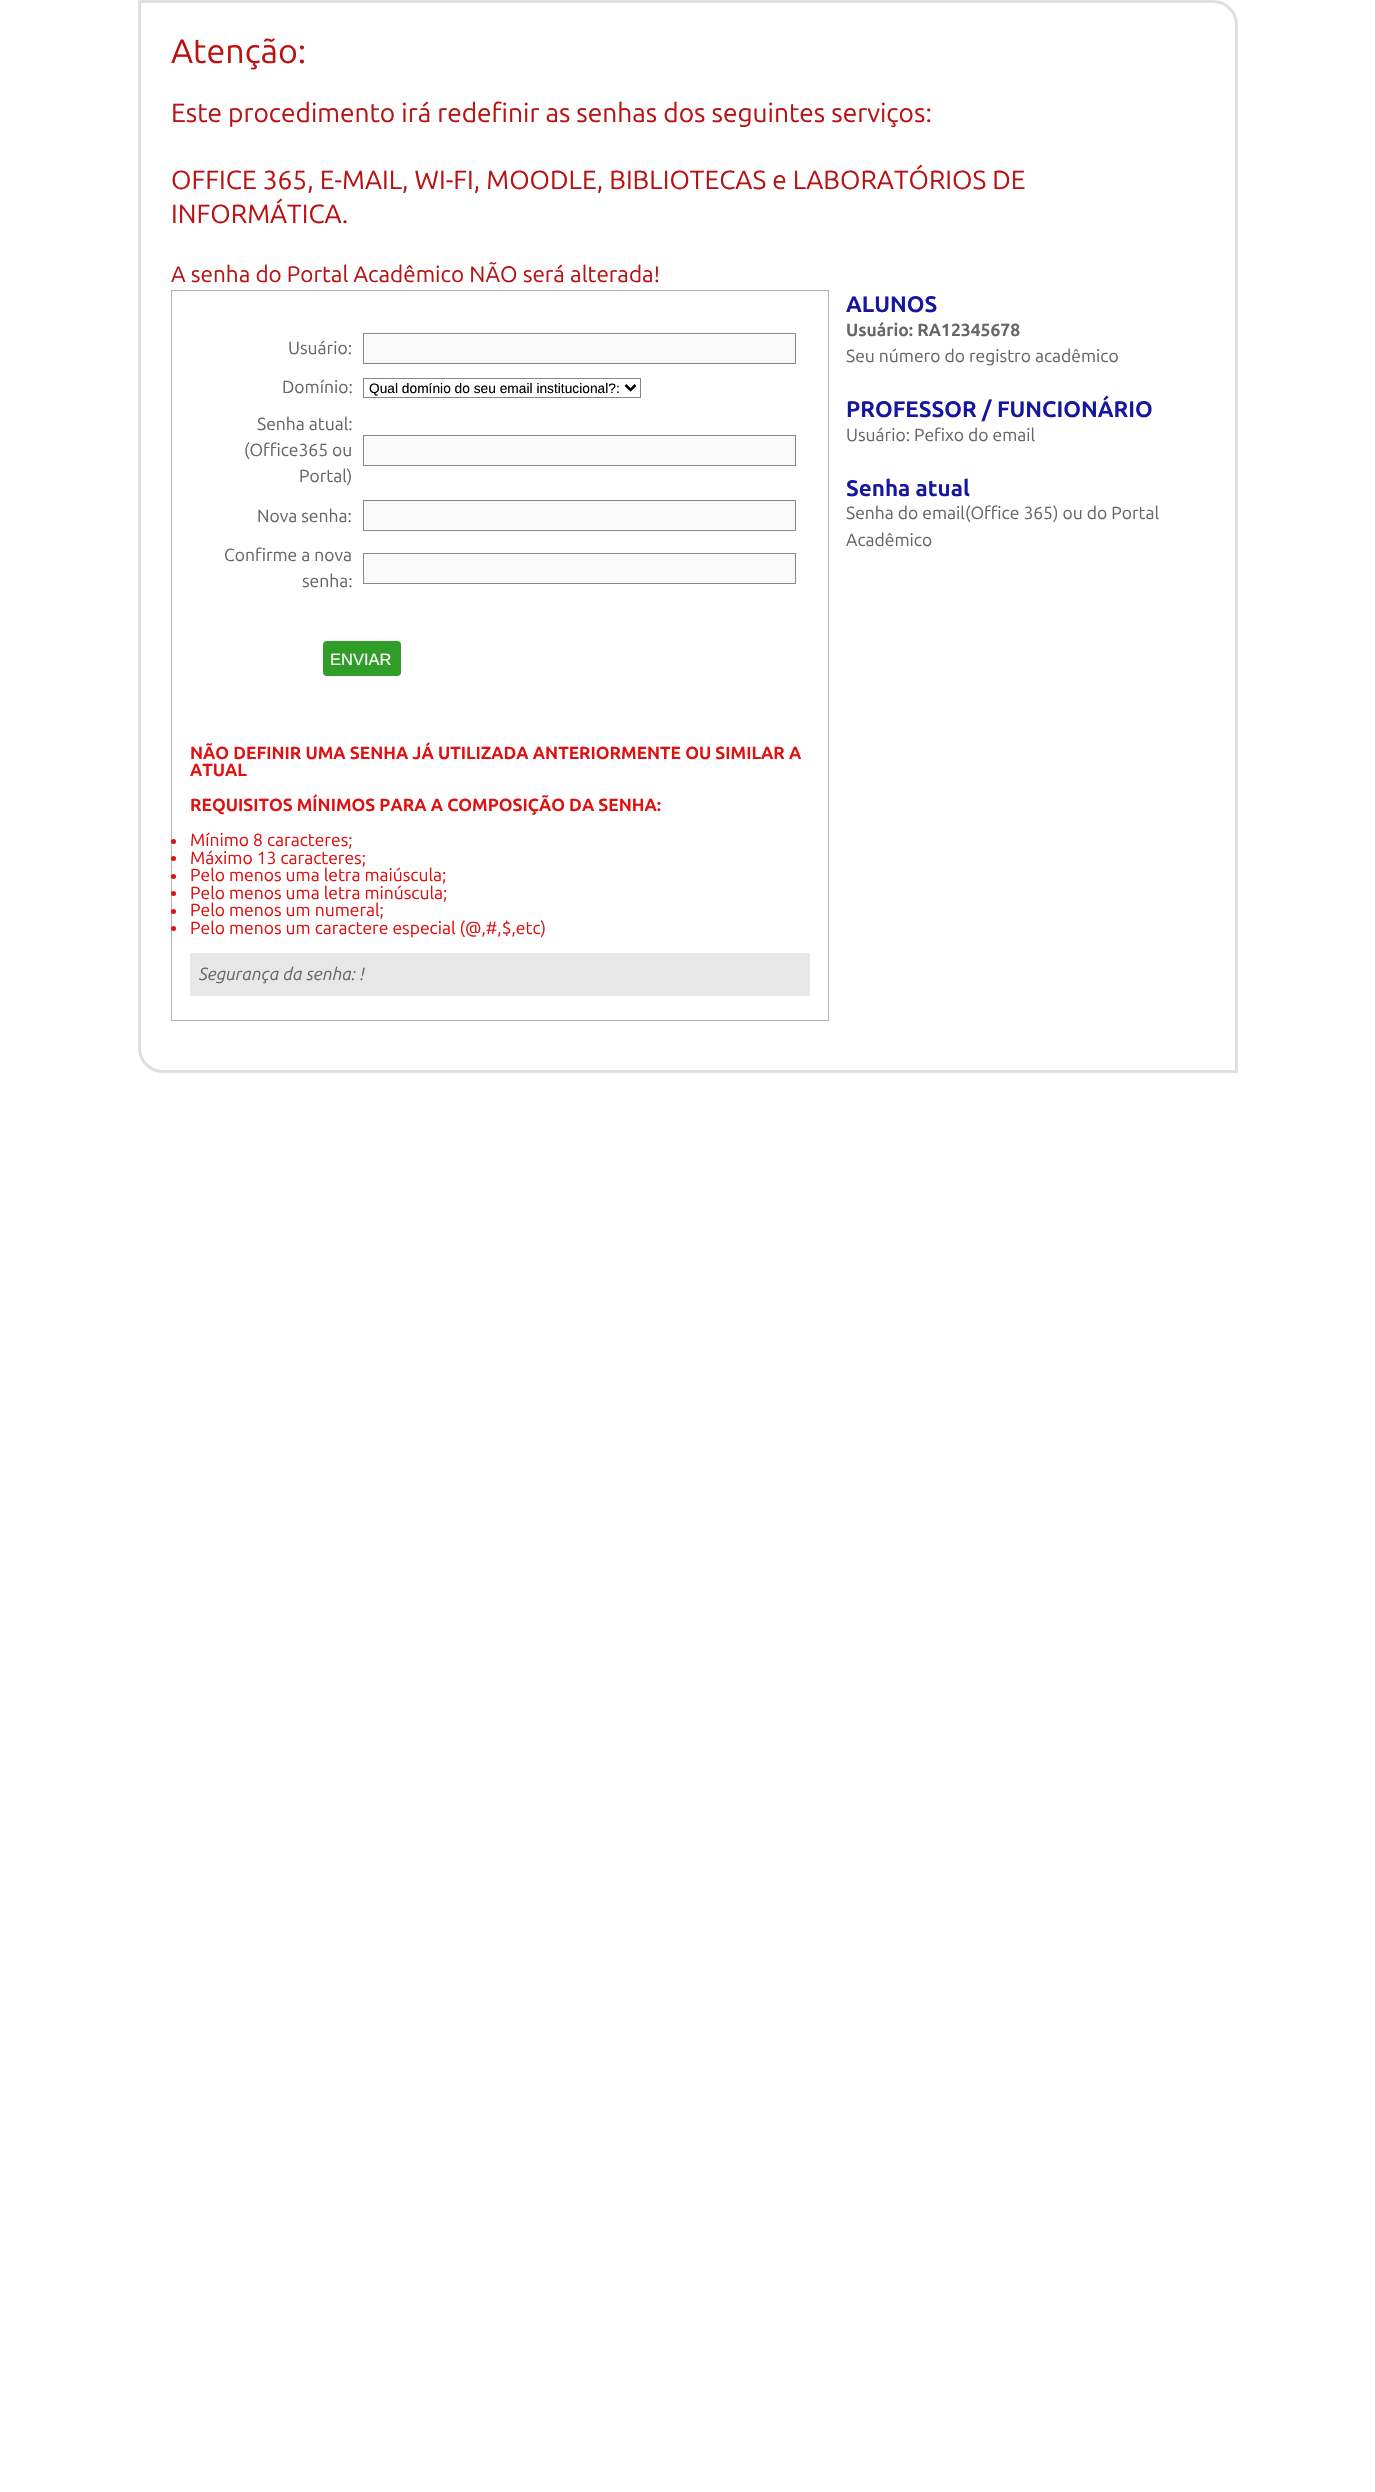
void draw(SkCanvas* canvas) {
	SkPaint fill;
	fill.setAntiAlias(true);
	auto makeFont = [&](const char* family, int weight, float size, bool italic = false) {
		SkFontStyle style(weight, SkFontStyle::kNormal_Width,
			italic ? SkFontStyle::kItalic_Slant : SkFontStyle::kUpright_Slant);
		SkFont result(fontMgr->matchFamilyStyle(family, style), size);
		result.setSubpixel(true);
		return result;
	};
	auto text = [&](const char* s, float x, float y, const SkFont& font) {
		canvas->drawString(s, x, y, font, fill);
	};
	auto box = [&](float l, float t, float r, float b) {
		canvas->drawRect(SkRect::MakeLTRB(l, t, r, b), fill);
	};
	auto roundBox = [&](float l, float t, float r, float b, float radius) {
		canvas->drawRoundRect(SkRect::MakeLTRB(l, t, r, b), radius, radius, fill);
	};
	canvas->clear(0xFFFFFFFF);
	fill.setStyle(SkPaint::kStroke_Style);
	fill.setStrokeWidth(3);
	fill.setColor(0xFFDFDFDF);
	canvas->drawPath(SkPathBuilder().moveTo(139.5f, 1.5f).lineTo(1213, 1.5f).cubicTo(1226, 1.5f, 1236.5f, 12, 1236.5f, 25).lineTo(1236.5f, 1071.5f).lineTo(163, 1071.5f).cubicTo(150, 1071.5f, 139.5f, 1061, 139.5f, 1048).close().detach(), fill);
	fill.setStrokeWidth(1);
	fill.setColor(0xFFB4B4B4);
	canvas->drawRect(SkRect::MakeLTRB(171.5f, 290.5f, 828.5f, 1020.5f), fill);
	fill.setStyle(SkPaint::kFill_Style);
	fill.setColor(0xFFFAFAFA);
	canvas->drawRect(SkRect::MakeLTRB(363.5f, 333.5f, 795.5f, 363.5f), fill);
	fill.setStyle(SkPaint::kStroke_Style);
	fill.setColor(0xFF888888);
	canvas->drawRect(SkRect::MakeLTRB(363.5f, 333.5f, 795.5f, 363.5f), fill);
	canvas->drawRect(SkRect::MakeLTRB(363.5f, 378.5f, 640.5f, 397.5f), fill);
	fill.setStrokeWidth(2.5f);
	fill.setColor(0xFF000000);
	canvas->drawPath(SkPathBuilder().moveTo(625.5f, 385).lineTo(630.5f, 390).lineTo(635.5f, 385).detach(), fill);
	fill.setStyle(SkPaint::kFill_Style);
	fill.setColor(0xFFFAFAFA);
	canvas->drawRect(SkRect::MakeLTRB(363.5f, 435.5f, 795.5f, 465.5f), fill);
	fill.setStyle(SkPaint::kStroke_Style);
	fill.setStrokeWidth(1);
	fill.setColor(0xFF888888);
	canvas->drawRect(SkRect::MakeLTRB(363.5f, 435.5f, 795.5f, 465.5f), fill);
	fill.setStyle(SkPaint::kFill_Style);
	fill.setColor(0xFFFAFAFA);
	canvas->drawRect(SkRect::MakeLTRB(363.5f, 500.5f, 795.5f, 530.5f), fill);
	fill.setStyle(SkPaint::kStroke_Style);
	fill.setColor(0xFF888888);
	canvas->drawRect(SkRect::MakeLTRB(363.5f, 500.5f, 795.5f, 530.5f), fill);
	fill.setStyle(SkPaint::kFill_Style);
	fill.setColor(0xFFFAFAFA);
	canvas->drawRect(SkRect::MakeLTRB(363.5f, 553.5f, 795.5f, 583.5f), fill);
	fill.setStyle(SkPaint::kStroke_Style);
	fill.setColor(0xFF888888);
	canvas->drawRect(SkRect::MakeLTRB(363.5f, 553.5f, 795.5f, 583.5f), fill);
	fill.setStyle(SkPaint::kFill_Style);
	fill.setColor(0xFF309D29);
	roundBox(323, 641, 401, 676, 4);
	fill.setColor(0xFFE11010);
	canvas->drawCircle(173.5f, 841.5f, 2.5f, fill);
	canvas->drawCircle(173.5f, 858.5f, 2.5f, fill);
	canvas->drawCircle(173.5f, 876.5f, 2.5f, fill);
	canvas->drawCircle(173.5f, 893.5f, 2.5f, fill);
	canvas->drawCircle(173.5f, 911.5f, 2.5f, fill);
	canvas->drawCircle(173.5f, 928.5f, 2.5f, fill);
	fill.setColor(0xFFE7E7E7);
	box(190, 953, 810, 996);
	auto font1 = makeFont("Ubuntu", 400, 34);
	fill.setColor(0xFFBA1111);
	text("Atenção:", 171, 63, font1);
	auto font2 = makeFont("Ubuntu", 400, 26.3f);
	text("Este procedimento irá redefinir as senhas dos seguintes serviços:", 171, 122, font2);
	text("OFFICE 365, E-MAIL, WI-FI, MOODLE, BIBLIOTECAS e LABORATÓRIOS DE", 171, 189, font2);
	text("INFORMÁTICA.", 171, 223, font2);
	auto font3 = makeFont("Ubuntu", 400, 22.5f);
	text("A senha do Portal Acadêmico NÃO será alterada!", 171, 282, font3);
	auto font4 = makeFont("Ubuntu", 400, 17.5f);
	fill.setColor(0xFF666666);
	text("Usuário:", 288, 354, font4);
	text("Domínio:", 282, 393, font4);
	auto font5 = makeFont("Liberation Sans", 400, 13.75f);
	fill.setColor(0xFF000000);
	text("Qual domínio do seu email institucional?:", 369, 393, font5);
	fill.setColor(0xFF666666);
	text("Senha atual:", 257, 430, font4);
	text("(Office365 ou", 244, 456, font4);
	text("Portal)", 299, 482, font4);
	text("Nova senha:", 257, 522, font4);
	text("Confirme a nova", 224, 561, font4);
	text("senha:", 302, 587, font4);
	auto font6 = makeFont("Liberation Sans", 400, 16.5f);
	fill.setColor(0xFFFFFFFF);
	text("ENVIAR", 330, 665, font6);
	auto font7 = makeFont("Ubuntu", 700, 17.5f);
	fill.setColor(0xFFE11010);
	text("NÃO DEFINIR UMA SENHA JÁ UTILIZADA ANTERIORMENTE OU SIMILAR A", 190, 759, font7);
	text("ATUAL", 190, 776, font7);
	text("REQUISITOS MÍNIMOS PARA A COMPOSIÇÃO DA SENHA:", 190, 811, font7);
	text("Mínimo 8 caracteres;", 190, 846, font4);
	text("Máximo 13 caracteres;", 190, 864, font4);
	text("Pelo menos uma letra maiúscula;", 190, 881, font4);
	text("Pelo menos uma letra minúscula;", 190, 899, font4);
	text("Pelo menos um numeral;", 190, 916, font4);
	text("Pelo menos um caractere especial (@,#,$,etc)", 190, 934, font4);
	auto font8 = makeFont("Ubuntu", 400, 17.5f, true);
	fill.setColor(0xFF666666);
	text("Segurança da senha: !", 199, 980, font8);
	auto font9 = makeFont("Ubuntu", 700, 22.5f);
	fill.setColor(0xFF16169F);
	text("ALUNOS", 846, 312, font9);
	fill.setColor(0xFF666666);
	text("Usuário: RA12345678", 846, 336, font7);
	text("Seu número do registro acadêmico", 846, 362, font4);
	fill.setColor(0xFF16169F);
	text("PROFESSOR / FUNCIONÁRIO", 846, 417, font9);
	fill.setColor(0xFF666666);
	text("Usuário: Pefixo do email", 846, 441, font4);
	fill.setColor(0xFF16169F);
	text("Senha atual", 846, 496, font9);
	fill.setColor(0xFF666666);
	text("Senha do email(Office 365) ou do Portal", 846, 519, font4);
	text("Acadêmico", 846, 546, font4);
}
